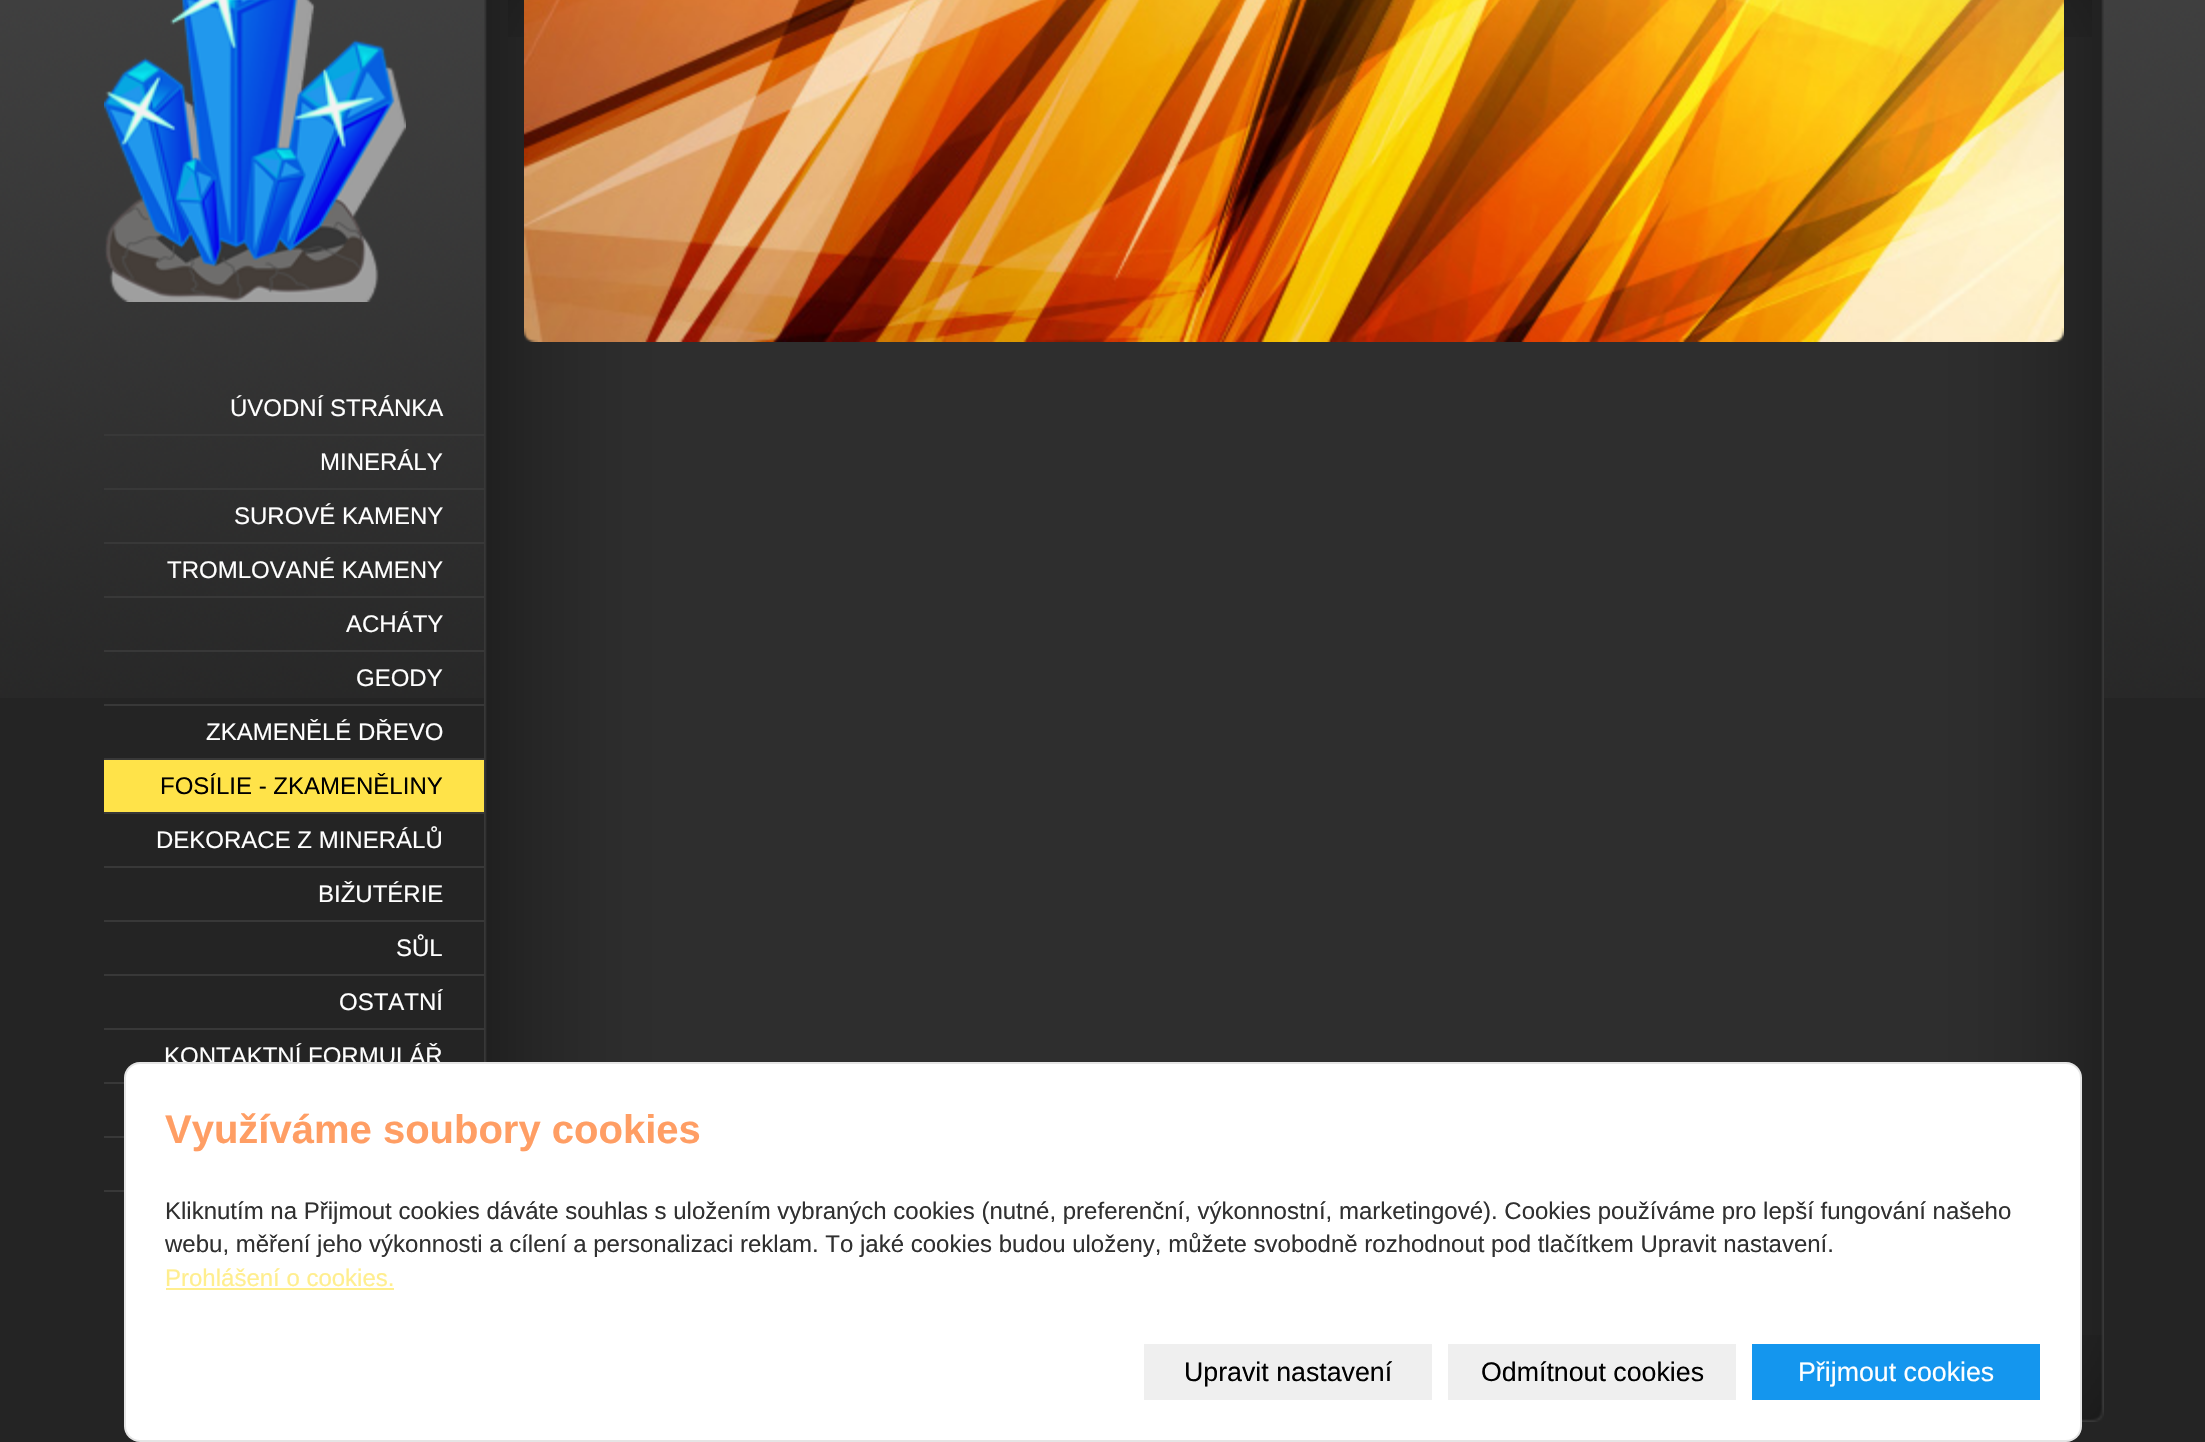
void draw(SkCanvas* canvas) {
	SkPaint fill;
	fill.setAntiAlias(true);
	auto makeFont = [&](const char* family, int weight, float size, bool italic = false) {
		SkFontStyle style(weight, SkFontStyle::kNormal_Width,
			italic ? SkFontStyle::kItalic_Slant : SkFontStyle::kUpright_Slant);
		SkFont result(fontMgr->matchFamilyStyle(family, style), size);
		result.setSubpixel(true);
		return result;
	};
	auto text = [&](const char* s, float x, float y, const SkFont& font) {
		canvas->drawString(s, x, y, font, fill);
	};
	auto box = [&](float l, float t, float r, float b) {
		canvas->drawRect(SkRect::MakeLTRB(l, t, r, b), fill);
	};
	auto roundBox = [&](float l, float t, float r, float b, float radius) {
		canvas->drawRoundRect(SkRect::MakeLTRB(l, t, r, b), radius, radius, fill);
	};
	auto picture = [&](const char* path, float l, float t, float r, float b) {
		auto image = SkImages::DeferredFromEncodedData(SkData::MakeFromFileName(path));
		canvas->drawImageRect(image, SkRect::MakeLTRB(l, t, r, b), SkSamplingOptions());
	};
	canvas->clear(0xFF242424);
	picture("image0.png", 0, 0, 2205, 698);
	picture("image1.png", 104, 0, 406, 302);
	picture("image2.png", 484, 0, 2104, 1335);
	picture("image3.png", 508, 0, 2092, 37);
	picture("image4.png", 2082, 1335, 2104, 1422);
	picture("image5.png", 524, 0, 2064, 342);
	picture("image6.png", 524, 328, 538, 342);
	picture("image7.png", 2050, 328, 2064, 342);
	fill.setColor(0xFF383838);
	box(104, 434, 484, 436);
	box(104, 488, 484, 490);
	box(104, 542, 484, 544);
	box(104, 596, 484, 598);
	box(104, 650, 484, 652);
	box(104, 704, 484, 706);
	box(104, 758, 484, 760);
	fill.setColor(0xFFFFE349);
	box(104, 760, 484, 812);
	fill.setColor(0xFF383838);
	box(104, 812, 484, 814);
	box(104, 866, 484, 868);
	box(104, 920, 484, 922);
	box(104, 974, 484, 976);
	box(104, 1028, 484, 1030);
	box(104, 1082, 124, 1084);
	box(104, 1136, 124, 1138);
	box(104, 1190, 124, 1192);
	fill.setColor(0xFFFFFFFF);
	roundBox(124, 1062, 2082, 1442, 16);
	auto font1 = makeFont("Liberation Sans", 400, 24);
	text("ÚVODNÍ STRÁNKA", 230, 416, font1);
	text("MINERÁLY", 320, 470, font1);
	text("SUROVÉ KAMENY", 234, 524, font1);
	text("TROMLOVANÉ KAMENY", 167, 578, font1);
	text("ACHÁTY", 346, 632, font1);
	text("GEODY", 356, 686, font1);
	text("ZKAMENĚLÉ DŘEVO", 206, 740, font1);
	fill.setColor(0xFF000000);
	text("FOSÍLIE - ZKAMENĚLINY", 160, 794, font1);
	fill.setColor(0xFFFFFFFF);
	text("DEKORACE Z MINERÁLŮ", 156, 848, font1);
	text("BIŽUTÉRIE", 318, 902, font1);
	text("SŮL", 396, 956, font1);
	text("OSTATNÍ", 339, 1010, font1);
	text("KONTAKTNÍ FORMULÁŘ", 164, 1064, font1);
	fill.setStyle(SkPaint::kStroke_Style);
	fill.setStrokeWidth(2);
	fill.setColor(0x1A000000);
	canvas->drawRoundRect(SkRect::MakeLTRB(125, 1063, 2081, 1441), 15, 15, fill);
	auto font2 = makeFont("Liberation Sans", 700, 40);
	fill.setStyle(SkPaint::kFill_Style);
	fill.setColor(0xFFFF9E64);
	text("Využíváme soubory cookies", 165, 1143, font2);
	fill.setColor(0xFF303030);
	text("Kliknutím na Přijmout cookies dáváte souhlas s uložením vybraných cookies (nutné, preferenční, výkonnostní, marketingové). Cookies používáme pro lepší fungování našeho", 165, 1219, font1);
	text("webu, měření jeho výkonnosti a cílení a personalizaci reklam. To jaké cookies budou uloženy, můžete svobodně rozhodnout pod tlačítkem Upravit nastavení.", 165, 1252, font1);
	fill.setColor(0xFFFFEE8E);
	text("Prohlášení o cookies.", 165, 1286, font1);
	box(166, 1288, 394, 1290);
	fill.setColor(0xFFEFEFEF);
	box(1144, 1344, 1432, 1400);
	auto font3 = makeFont("Liberation Sans", 400, 26.75f);
	fill.setColor(0xFF000000);
	text("Upravit nastavení", 1184, 1381, font3);
	fill.setColor(0xFFEFEFEF);
	box(1448, 1344, 1736, 1400);
	fill.setColor(0xFF000000);
	text("Odmítnout cookies", 1481, 1381, font3);
	fill.setColor(0xFF1496EE);
	box(1752, 1344, 2040, 1400);
	fill.setColor(0xFFFFFFFF);
	text("Přijmout cookies", 1798, 1381, font3);
}
